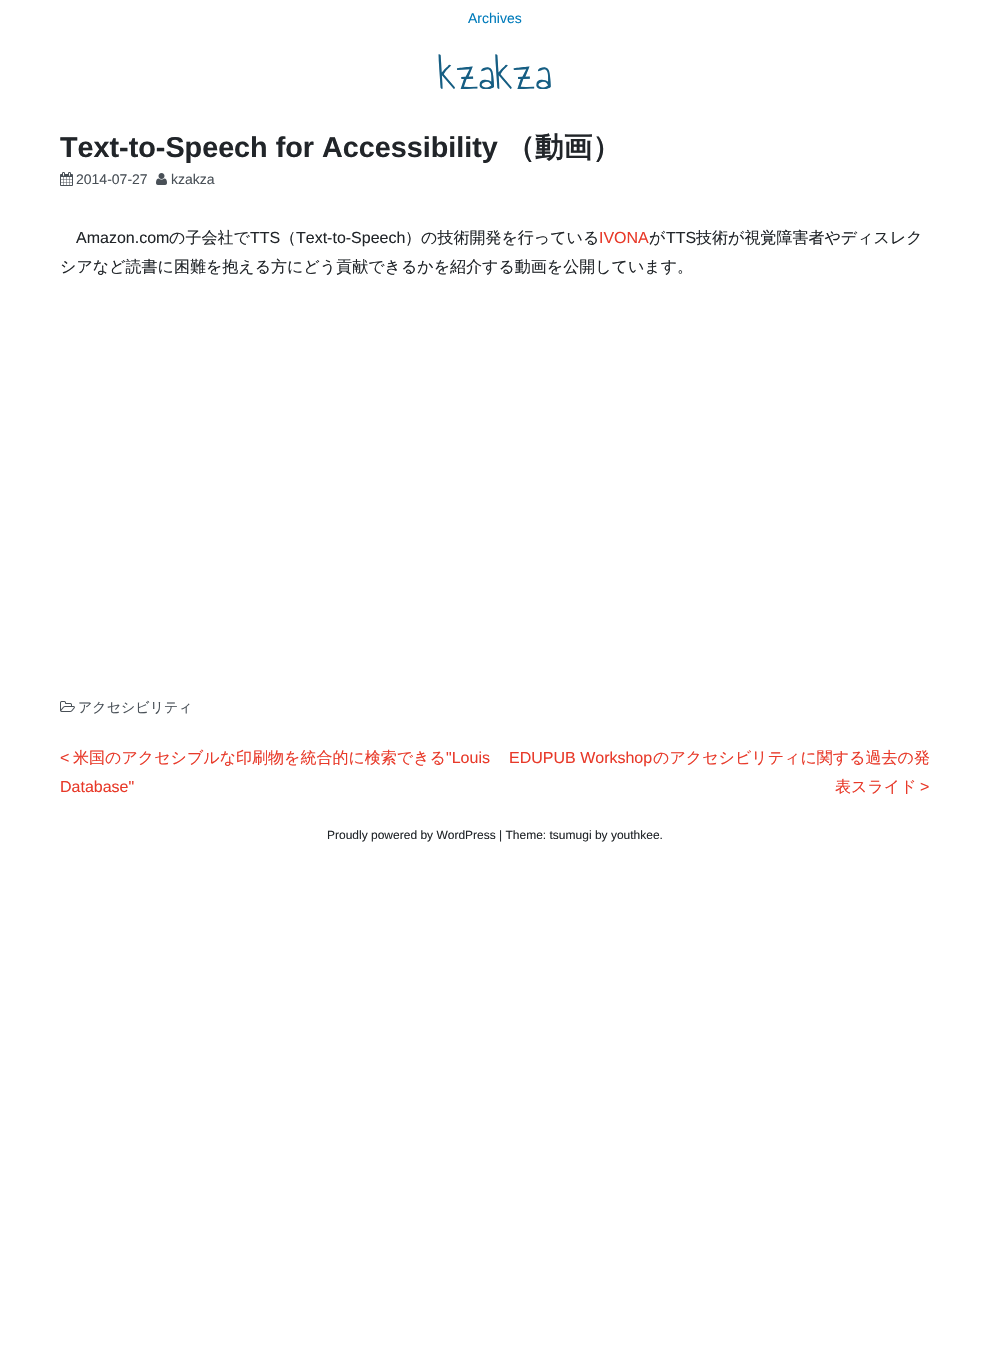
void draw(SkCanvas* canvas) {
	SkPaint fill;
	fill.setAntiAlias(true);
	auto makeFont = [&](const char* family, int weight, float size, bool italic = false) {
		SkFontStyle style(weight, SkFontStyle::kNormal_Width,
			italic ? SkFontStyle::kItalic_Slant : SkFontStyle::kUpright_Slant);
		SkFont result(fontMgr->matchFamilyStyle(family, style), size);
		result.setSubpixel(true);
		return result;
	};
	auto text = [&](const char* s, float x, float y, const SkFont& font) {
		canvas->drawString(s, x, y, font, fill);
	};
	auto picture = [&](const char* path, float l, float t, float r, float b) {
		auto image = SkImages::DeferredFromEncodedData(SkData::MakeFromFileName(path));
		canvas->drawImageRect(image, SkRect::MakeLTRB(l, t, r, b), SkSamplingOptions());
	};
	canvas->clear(0xFFFFFFFF);
	picture("image0.png", 60, 172, 73, 186);
	picture("image1.png", 156, 173, 167, 185);
	picture("image2.png", 60, 701, 75, 712);
	auto font1 = makeFont("Liberation Sans", 400, 14);
	fill.setColor(0xFF007BBB);
	text("Archives", 468, 23, font1);
	auto font2 = makeFont("Annie Use Your Telescope", 400, 48);
	fill.setColor(0xFF165E83);
	text("kzakza", 438, 89, font2);
	auto font3 = makeFont("Liberation Sans", 700, 28.75f);
	fill.setColor(0xFF212529);
	text("Text-to-Speech for Accessibility", 60, 157, font3);
	auto font4 = makeFont("WenQuanYi Zen Hei", 700, 28.75f);
	text("（動画）", 506, 157, font4);
	fill.setColor(0xFF495057);
	text("2014-07-27", 76, 184, font1);
	text("kzakza", 171, 184, font1);
	auto font5 = makeFont("Liberation Sans", 400, 16);
	fill.setColor(0xFF212529);
	text("Amazon.com", 76, 243, font5);
	auto font6 = makeFont("WenQuanYi Zen Hei", 500, 16);
	text("の子会社で", 169, 243, font6);
	text("TTS", 250, 243, font5);
	text("（", 280, 243, font6);
	text("Text-to-Speech", 296, 243, font5);
	text("）の技術開発を行っている", 405, 243, font6);
	fill.setColor(0xFFE83929);
	text("IVONA", 599, 243, font5);
	fill.setColor(0xFF212529);
	text("が", 649, 243, font6);
	text("TTS", 666, 243, font5);
	text("技術が視覚障害者やディスレク", 696, 243, font6);
	text("シアなど読書に困難を抱える方にどう貢献できるかを紹介する動画を公開しています。", 60, 272, font6);
	auto font7 = makeFont("WenQuanYi Zen Hei", 500, 14);
	fill.setColor(0xFF495057);
	text("アクセシビリティ", 78, 712, font7);
	fill.setColor(0xFFE83929);
	text("<", 60, 763, font5);
	text("米国のアクセシブルな印刷物を統合的に検索できる", 73, 763, font6);
	text("\"Louis", 446, 763, font5);
	text("Database\"", 60, 792, font5);
	text("EDUPUB Workshop", 509, 763, font5);
	text("のアクセシビリティに関する過去の発", 653, 763, font6);
	text("表スライド", 835, 792, font6);
	text(">", 920, 792, font5);
	auto font8 = makeFont("Liberation Sans", 400, 12);
	fill.setColor(0xFF212529);
	text("Proudly powered by WordPress | Theme: tsumugi by youthkee.", 327, 839, font8);
}
